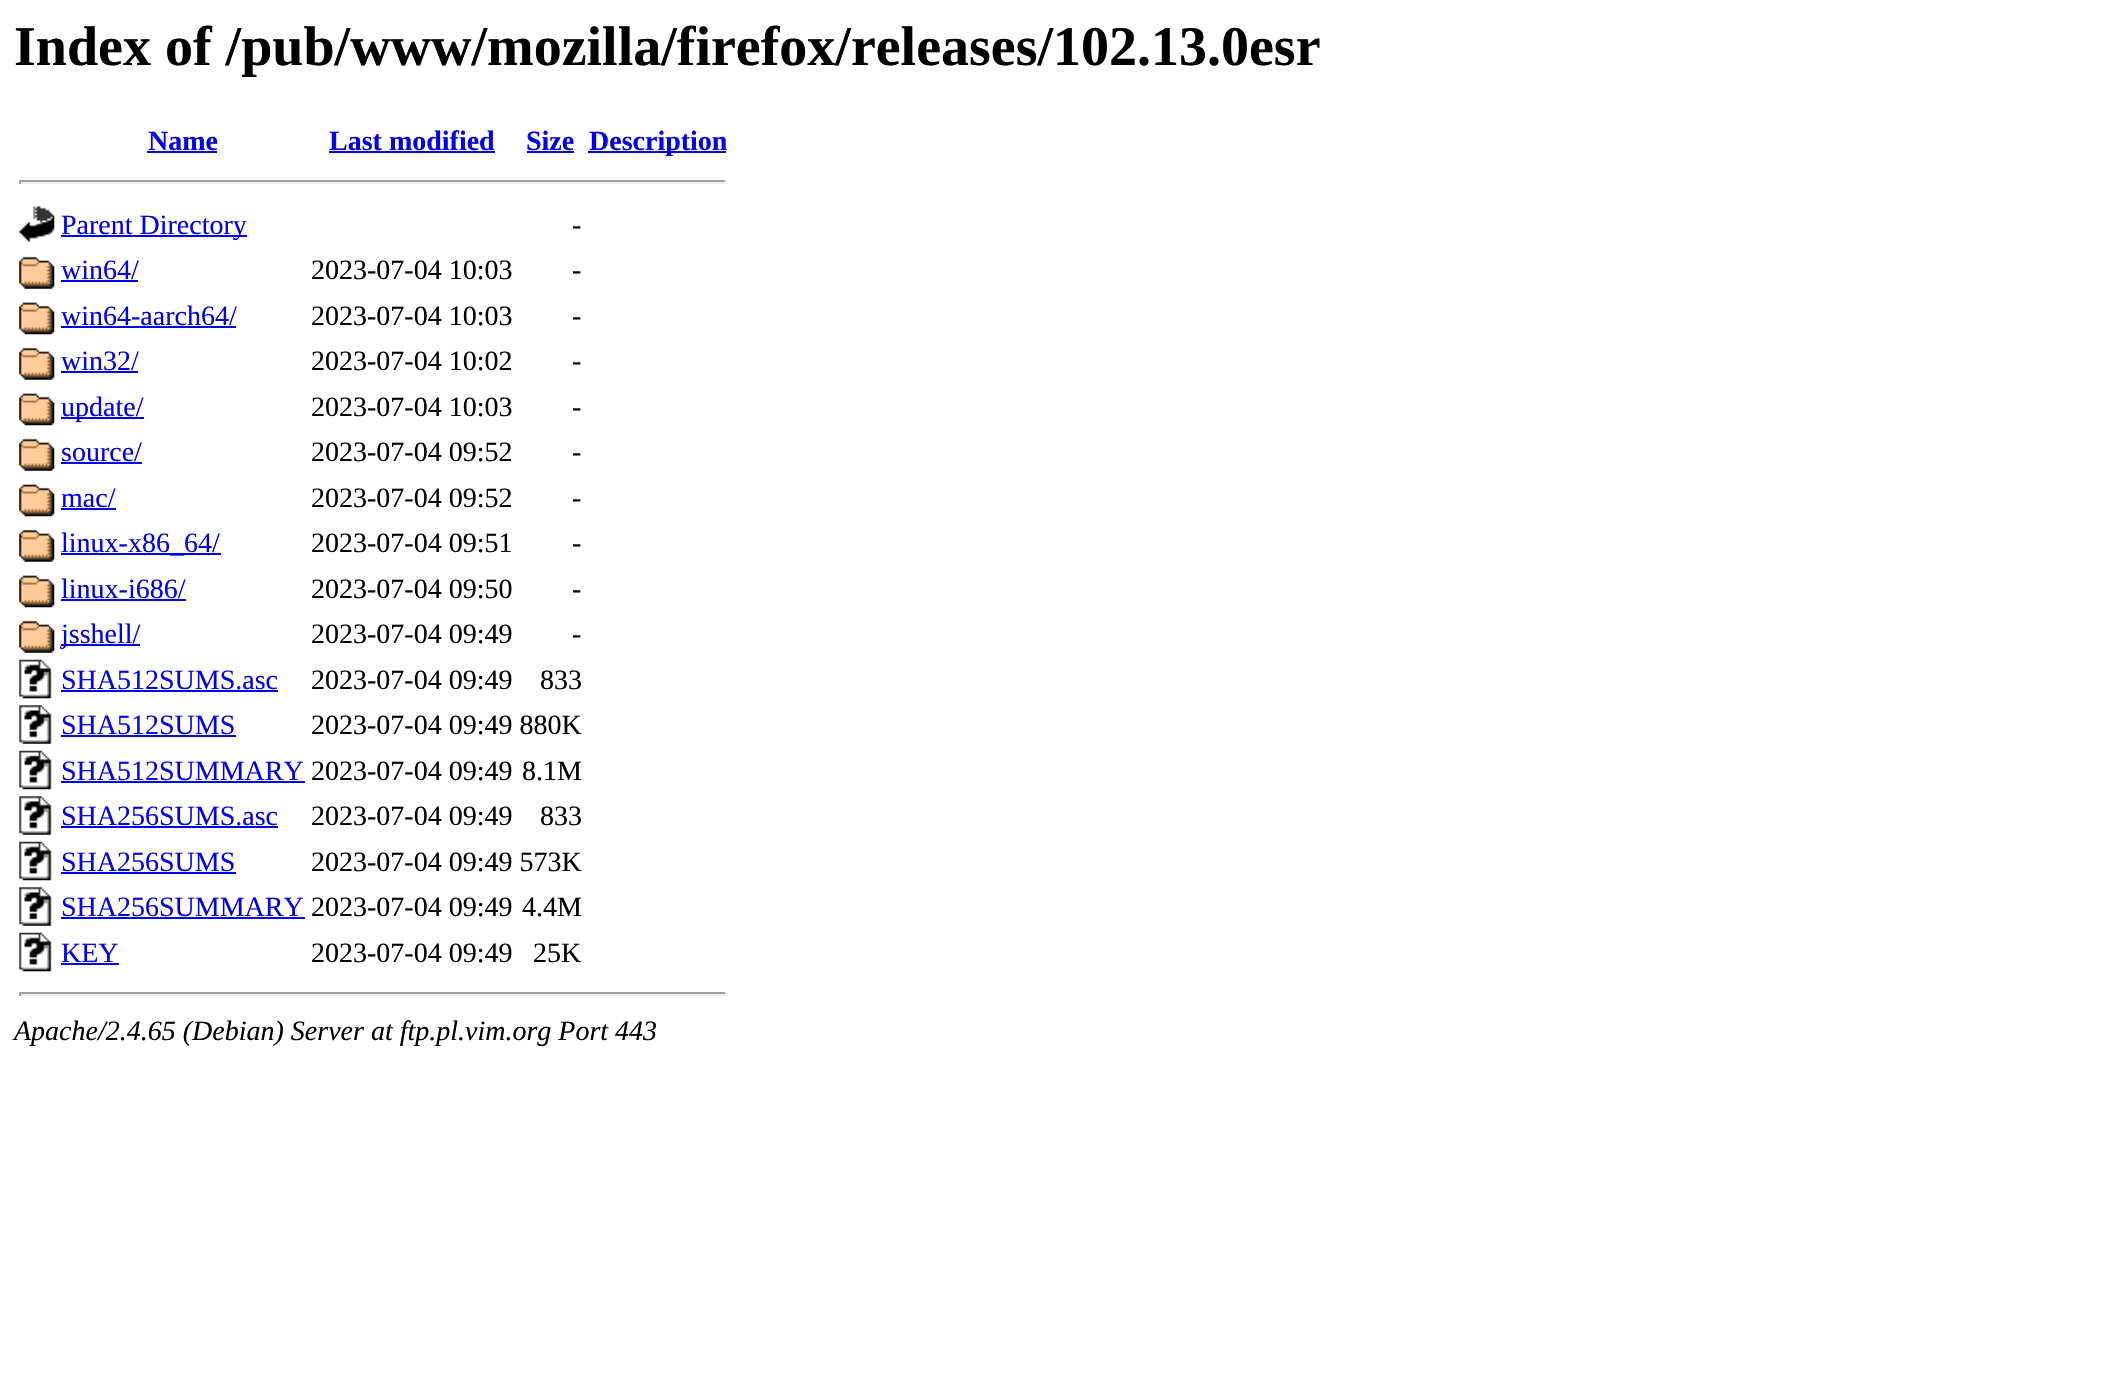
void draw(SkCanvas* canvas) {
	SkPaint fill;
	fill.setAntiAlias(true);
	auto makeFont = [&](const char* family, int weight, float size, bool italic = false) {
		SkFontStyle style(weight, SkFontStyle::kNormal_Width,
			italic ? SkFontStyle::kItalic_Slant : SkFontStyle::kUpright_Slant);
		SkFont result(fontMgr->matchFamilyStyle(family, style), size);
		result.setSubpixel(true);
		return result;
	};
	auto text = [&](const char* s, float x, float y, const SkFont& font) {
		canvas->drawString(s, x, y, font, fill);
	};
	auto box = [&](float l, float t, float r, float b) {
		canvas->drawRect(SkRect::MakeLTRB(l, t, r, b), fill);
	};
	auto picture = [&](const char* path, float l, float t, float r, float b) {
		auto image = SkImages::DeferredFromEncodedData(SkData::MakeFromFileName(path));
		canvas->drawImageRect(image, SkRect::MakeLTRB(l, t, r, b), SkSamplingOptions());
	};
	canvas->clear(0xFFFFFFFF);
	fill.setColor(0xFF0000EE);
	box(147, 151, 217, 153);
	box(329, 151, 495, 153);
	box(527, 151, 574, 153);
	box(588, 151, 726, 153);
	fill.setColor(0xFF9F9F9F);
	box(19, 180, 726, 182);
	fill.setColor(0xFFEEEEEE);
	box(725, 180, 727, 184);
	box(19, 182, 726, 184);
	fill.setColor(0xFF9F9F9F);
	box(19, 180, 21, 184);
	picture("image0.png", 19, 206, 55, 242);
	fill.setColor(0xFF0000EE);
	box(61, 235, 247, 237);
	picture("image1.png", 19, 256, 55, 289);
	box(61, 280, 138, 282);
	picture("image2.png", 19, 302, 55, 335);
	box(61, 326, 236, 328);
	picture("image1.png", 19, 347, 55, 380);
	box(61, 371, 138, 373);
	picture("image2.png", 19, 393, 55, 426);
	box(61, 417, 144, 419);
	picture("image1.png", 19, 438, 55, 471);
	box(61, 462, 142, 464);
	picture("image2.png", 19, 484, 55, 517);
	box(61, 508, 116, 510);
	picture("image1.png", 19, 529, 55, 562);
	box(61, 553, 221, 555);
	picture("image2.png", 19, 575, 55, 608);
	box(61, 599, 186, 601);
	picture("image1.png", 19, 620, 55, 653);
	box(61, 644, 140, 646);
	picture("image3.png", 19, 659, 52, 699);
	box(61, 690, 278, 692);
	picture("image4.png", 19, 705, 52, 744);
	box(61, 735, 236, 737);
	picture("image3.png", 19, 750, 52, 790);
	box(61, 781, 305, 783);
	picture("image4.png", 19, 796, 52, 835);
	box(61, 826, 278, 828);
	picture("image3.png", 19, 841, 52, 881);
	box(61, 872, 236, 874);
	picture("image4.png", 19, 887, 52, 926);
	box(61, 917, 305, 919);
	picture("image3.png", 19, 932, 52, 972);
	box(61, 963, 119, 965);
	fill.setColor(0xFF9F9F9F);
	box(19, 992, 726, 994);
	fill.setColor(0xFFEEEEEE);
	box(725, 992, 727, 996);
	box(19, 994, 726, 996);
	fill.setColor(0xFF9F9F9F);
	box(19, 992, 21, 996);
	auto font1 = makeFont("Liberation Serif", 700, 56);
	fill.setColor(0xFF000000);
	text("Index of /pub/www/mozilla/firefox/releases/102.13.0esr", 14, 65, font1);
	auto font2 = makeFont("Liberation Serif", 700, 28);
	fill.setColor(0xFF0000EE);
	text("Name", 148, 150, font2);
	text("Last modified", 329, 150, font2);
	text("Size", 526, 150, font2);
	text("Description", 589, 150, font2);
	auto font3 = makeFont("Liberation Serif", 400, 28);
	text("Parent Directory", 61, 234, font3);
	fill.setColor(0xFF000000);
	text("-", 572, 234, font3);
	fill.setColor(0xFF0000EE);
	text("win64/", 61, 279, font3);
	fill.setColor(0xFF000000);
	text("2023-07-04 10:03", 311, 279, font3);
	text("-", 572, 279, font3);
	fill.setColor(0xFF0000EE);
	text("win64-aarch64/", 61, 325, font3);
	fill.setColor(0xFF000000);
	text("2023-07-04 10:03", 311, 325, font3);
	text("-", 572, 325, font3);
	fill.setColor(0xFF0000EE);
	text("win32/", 61, 370, font3);
	fill.setColor(0xFF000000);
	text("2023-07-04 10:02", 311, 370, font3);
	text("-", 572, 370, font3);
	fill.setColor(0xFF0000EE);
	text("update/", 61, 416, font3);
	fill.setColor(0xFF000000);
	text("2023-07-04 10:03", 311, 416, font3);
	text("-", 572, 416, font3);
	fill.setColor(0xFF0000EE);
	text("source/", 61, 461, font3);
	fill.setColor(0xFF000000);
	text("2023-07-04 09:52", 311, 461, font3);
	text("-", 572, 461, font3);
	fill.setColor(0xFF0000EE);
	text("mac/", 61, 507, font3);
	fill.setColor(0xFF000000);
	text("2023-07-04 09:52", 311, 507, font3);
	text("-", 572, 507, font3);
	fill.setColor(0xFF0000EE);
	text("linux-x86_64/", 61, 552, font3);
	fill.setColor(0xFF000000);
	text("2023-07-04 09:51", 311, 552, font3);
	text("-", 572, 552, font3);
	fill.setColor(0xFF0000EE);
	text("linux-i686/", 61, 598, font3);
	fill.setColor(0xFF000000);
	text("2023-07-04 09:50", 311, 598, font3);
	text("-", 572, 598, font3);
	fill.setColor(0xFF0000EE);
	text("jsshell/", 61, 643, font3);
	fill.setColor(0xFF000000);
	text("2023-07-04 09:49", 311, 643, font3);
	text("-", 572, 643, font3);
	fill.setColor(0xFF0000EE);
	text("SHA512SUMS.asc", 61, 689, font3);
	fill.setColor(0xFF000000);
	text("2023-07-04 09:49", 311, 689, font3);
	text("833", 540, 689, font3);
	fill.setColor(0xFF0000EE);
	text("SHA512SUMS", 61, 734, font3);
	fill.setColor(0xFF000000);
	text("2023-07-04 09:49 880K", 311, 734, font3);
	fill.setColor(0xFF0000EE);
	text("SHA512SUMMARY", 61, 780, font3);
	fill.setColor(0xFF000000);
	text("2023-07-04 09:49", 311, 780, font3);
	text("8.1M", 522, 780, font3);
	fill.setColor(0xFF0000EE);
	text("SHA256SUMS.asc", 61, 825, font3);
	fill.setColor(0xFF000000);
	text("2023-07-04 09:49", 311, 825, font3);
	text("833", 540, 825, font3);
	fill.setColor(0xFF0000EE);
	text("SHA256SUMS", 61, 871, font3);
	fill.setColor(0xFF000000);
	text("2023-07-04 09:49 573K", 311, 871, font3);
	fill.setColor(0xFF0000EE);
	text("SHA256SUMMARY", 61, 916, font3);
	fill.setColor(0xFF000000);
	text("2023-07-04 09:49", 311, 916, font3);
	text("4.4M", 522, 916, font3);
	fill.setColor(0xFF0000EE);
	text("KEY", 61, 962, font3);
	fill.setColor(0xFF000000);
	text("2023-07-04 09:49", 311, 962, font3);
	text("25K", 533, 962, font3);
	auto font4 = makeFont("Liberation Serif", 400, 28, true);
	text("Apache/2.4.65 (Debian) Server at ftp.pl.vim.org Port 443", 14, 1040, font4);
}
